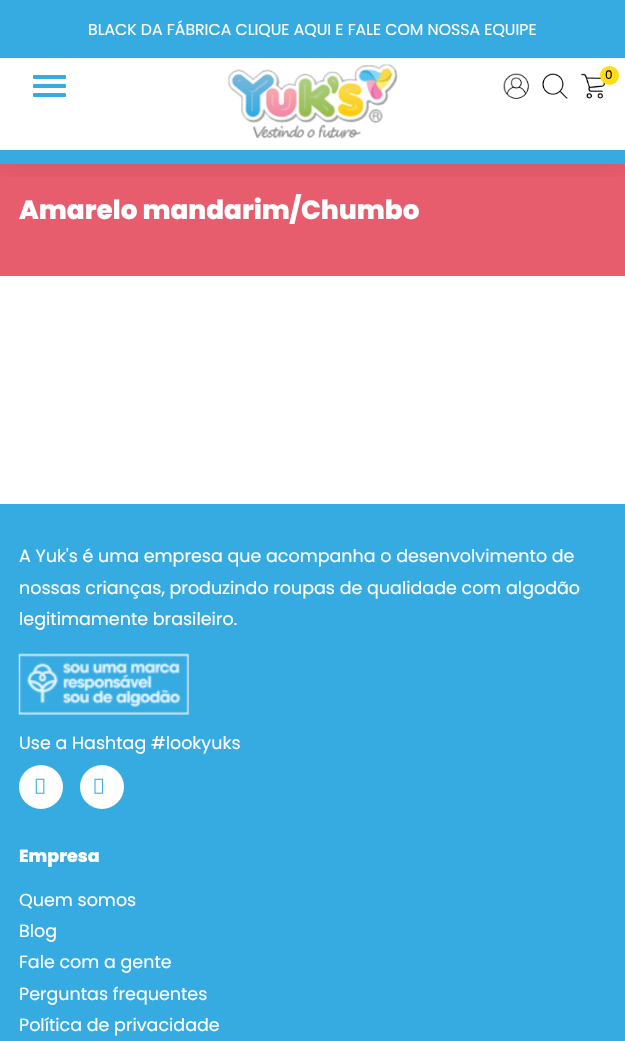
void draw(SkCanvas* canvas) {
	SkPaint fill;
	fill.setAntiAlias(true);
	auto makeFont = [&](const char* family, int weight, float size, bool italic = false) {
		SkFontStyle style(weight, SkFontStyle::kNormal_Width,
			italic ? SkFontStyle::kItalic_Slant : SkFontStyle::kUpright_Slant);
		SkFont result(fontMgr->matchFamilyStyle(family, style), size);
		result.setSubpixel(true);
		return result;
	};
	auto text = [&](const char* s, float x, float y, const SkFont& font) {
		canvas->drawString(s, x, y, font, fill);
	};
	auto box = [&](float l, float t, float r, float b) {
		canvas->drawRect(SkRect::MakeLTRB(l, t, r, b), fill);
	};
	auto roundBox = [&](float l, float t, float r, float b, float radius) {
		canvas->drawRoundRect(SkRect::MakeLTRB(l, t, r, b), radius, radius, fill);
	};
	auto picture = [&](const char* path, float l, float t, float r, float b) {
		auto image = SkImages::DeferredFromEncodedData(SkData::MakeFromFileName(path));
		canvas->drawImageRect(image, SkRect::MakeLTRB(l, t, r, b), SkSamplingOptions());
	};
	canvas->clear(0xFFFFFFFF);
	fill.setColor(0xFFE85D6D);
	box(0, 164, 625, 276);
	canvas->save();
	canvas->clipRect(SkRect::MakeLTRB(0, 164, 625, 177));
	fill.setColor(0x1A000000);
	fill.setMaskFilter(SkMaskFilter::MakeBlur(kNormal_SkBlurStyle, 15.5f));
	canvas->drawRect(SkRect::MakeLTRB(0, 58, 625, 164), fill);
	fill.setMaskFilter(nullptr);
	canvas->restore();
	fill.setColor(0xFF36ABE2);
	box(0, 0, 625, 58);
	roundBox(33, 75, 66, 79, 1);
	roundBox(33, 84, 66, 88, 1);
	roundBox(33, 93, 66, 97, 1);
	picture("image0.png", 227, 63, 398, 139);
	picture("image1.png", 503, 73, 529, 99);
	picture("image2.png", 542, 73, 568, 99);
	picture("image3.png", 581, 73, 606, 99);
	fill.setColor(0xFFFFDD15);
	canvas->drawCircle(609.5f, 75.5f, 9.5f, fill);
	fill.setColor(0xFF36ABE2);
	box(0, 150, 625, 164);
	box(0, 504, 625, 1041);
	picture("image4.png", 18, 653, 189, 715);
	fill.setColor(0xFFFFFFFF);
	canvas->drawCircle(41, 787, 22, fill);
	picture("image5.png", 35, 778, 45, 794);
	canvas->drawCircle(102, 787, 22, fill);
	picture("image6.png", 94, 778, 104, 794);
	auto font1 = makeFont("Poppins", 400, 15.75f);
	text("BLACK DA FÁBRICA CLIQUE AQUI E FALE COM NOSSA EQUIPE", 88, 35, font1);
	auto font2 = makeFont("Poppins", 400, 12);
	fill.setColor(0xFF000000);
	text("0", 605, 79, font2);
	auto font3 = makeFont("Poppins", 800, 26.25f);
	fill.setColor(0xFFFFFFFF);
	text("Amarelo mandarim/Chumbo", 19, 219, font3);
	auto font4 = makeFont("Poppins", 400, 17.5f);
	text("A Yuk's é uma empresa que acompanha o desenvolvimento de", 19, 562, font4);
	text("nossas crianças, produzindo roupas de qualidade com algodão", 19, 594, font4);
	text("legitimamente brasileiro.", 19, 625, font4);
	text("Use a Hashtag #lookyuks", 19, 749, font4);
	auto font5 = makeFont("Poppins", 800, 17.5f);
	text("Empresa", 19, 862, font5);
	text("Quem somos", 19, 906, font4);
	text("Blog", 19, 937, font4);
	text("Fale com a gente", 19, 968, font4);
	text("Perguntas frequentes", 19, 1000, font4);
	text("Política de privacidade", 19, 1031, font4);
}
